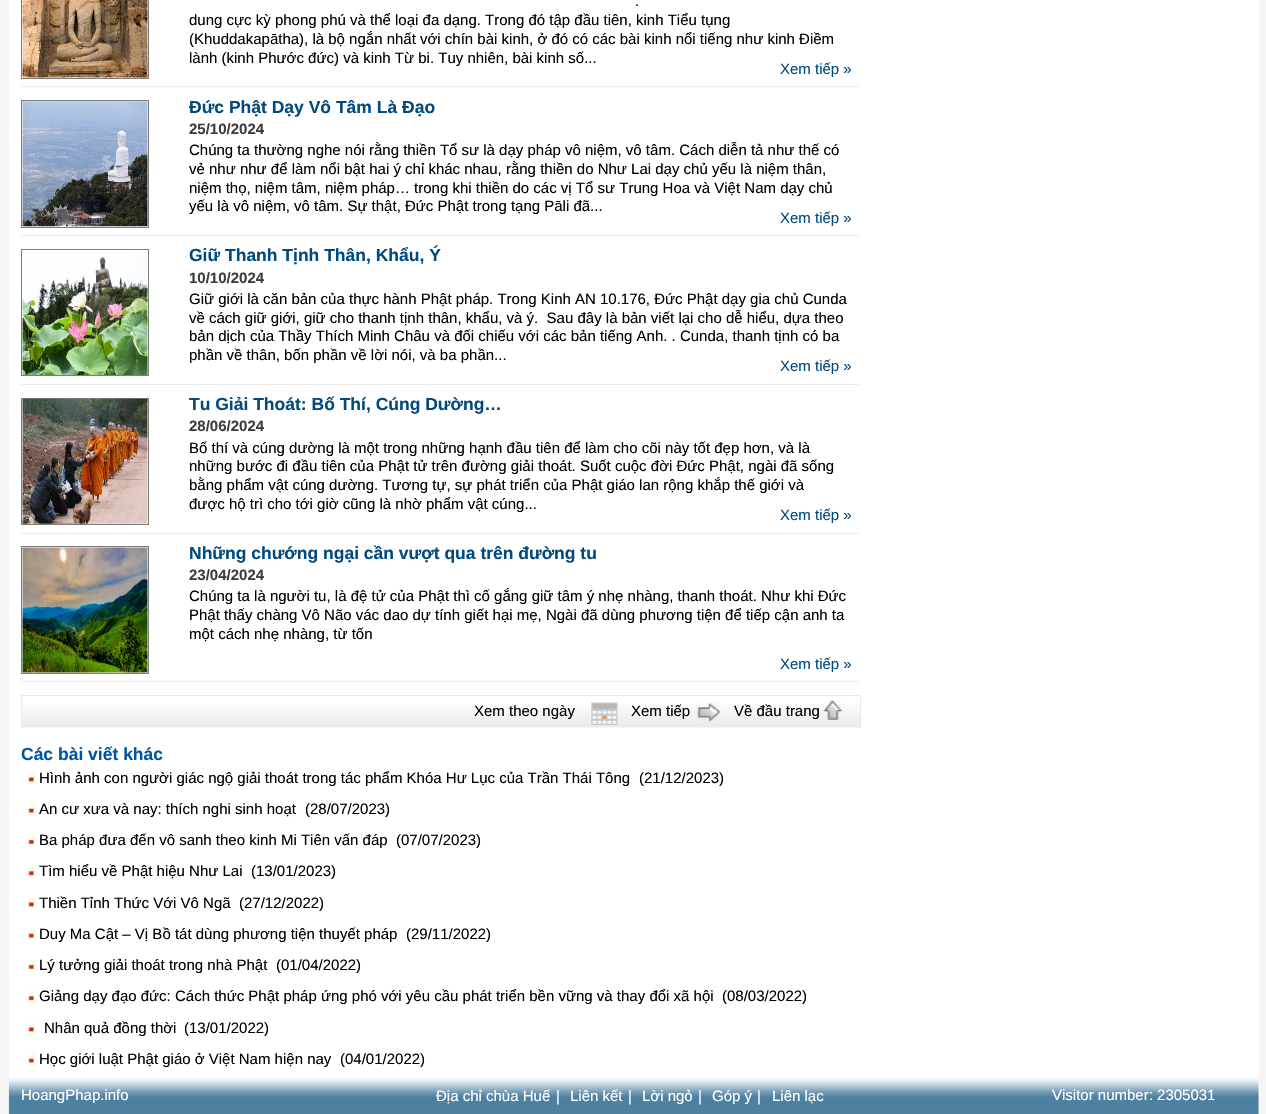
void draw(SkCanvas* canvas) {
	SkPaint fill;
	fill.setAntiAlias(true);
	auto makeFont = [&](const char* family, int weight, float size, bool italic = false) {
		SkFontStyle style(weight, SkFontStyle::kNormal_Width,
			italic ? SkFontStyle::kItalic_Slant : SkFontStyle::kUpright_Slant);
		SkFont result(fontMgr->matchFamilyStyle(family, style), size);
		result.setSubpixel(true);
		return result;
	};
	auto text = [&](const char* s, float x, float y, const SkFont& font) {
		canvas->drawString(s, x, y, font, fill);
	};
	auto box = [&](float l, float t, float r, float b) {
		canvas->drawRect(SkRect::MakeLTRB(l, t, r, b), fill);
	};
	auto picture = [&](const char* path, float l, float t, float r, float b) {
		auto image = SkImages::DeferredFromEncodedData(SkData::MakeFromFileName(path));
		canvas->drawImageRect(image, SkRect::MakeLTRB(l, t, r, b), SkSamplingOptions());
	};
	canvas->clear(0xFFF5F5F5);
	fill.setColor(0xFFFFFFFF);
	box(9, 0, 1259, 1114);
	fill.setStyle(SkPaint::kStroke_Style);
	fill.setStrokeWidth(1);
	fill.setColor(0xFF7D7D7D);
	canvas->drawRect(SkRect::MakeLTRB(21.5f, -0.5f, 148.5f, 78.5f), fill);
	picture("image0.png", 22, 0, 148, 78);
	fill.setStyle(SkPaint::kFill_Style);
	fill.setColor(0xFFECECEC);
	box(21, 86, 859, 87);
	fill.setStyle(SkPaint::kStroke_Style);
	fill.setColor(0xFF7D7D7D);
	canvas->drawRect(SkRect::MakeLTRB(21.5f, 100.5f, 148.5f, 227.5f), fill);
	picture("image1.png", 22, 101, 148, 227);
	fill.setStyle(SkPaint::kFill_Style);
	fill.setColor(0xFFECECEC);
	box(21, 235, 859, 236);
	fill.setStyle(SkPaint::kStroke_Style);
	fill.setColor(0xFF7D7D7D);
	canvas->drawRect(SkRect::MakeLTRB(21.5f, 249.5f, 148.5f, 375.5f), fill);
	picture("image2.png", 22, 251, 148, 375);
	fill.setStyle(SkPaint::kFill_Style);
	fill.setColor(0xFFECECEC);
	box(21, 384, 859, 385);
	fill.setStyle(SkPaint::kStroke_Style);
	fill.setColor(0xFF7D7D7D);
	canvas->drawRect(SkRect::MakeLTRB(21.5f, 398.5f, 148.5f, 524.5f), fill);
	picture("image3.png", 22, 398, 148, 524);
	fill.setStyle(SkPaint::kFill_Style);
	fill.setColor(0xFFECECEC);
	box(21, 533, 859, 534);
	fill.setStyle(SkPaint::kStroke_Style);
	fill.setColor(0xFF7D7D7D);
	canvas->drawRect(SkRect::MakeLTRB(21.5f, 546.5f, 148.5f, 673.5f), fill);
	picture("image4.png", 22, 547, 148, 673);
	fill.setStyle(SkPaint::kFill_Style);
	fill.setColor(0xFFECECEC);
	box(21, 681, 859, 682);
	picture("image5.png", 22, 704, 862, 728);
	fill.setColor(0xFFEBEBEB);
	box(21, 695, 861, 696);
	box(860, 695, 861, 728);
	box(21, 695, 22, 728);
	picture("image6.png", 591, 702, 618, 725);
	picture("image7.png", 697, 702, 720, 722);
	picture("image8.png", 823, 700, 843, 720);
	picture("image9.png", 27, 772, 35, 783);
	picture("image10.png", 27, 803, 35, 814);
	picture("image11.png", 27, 835, 35, 845);
	picture("image12.png", 27, 866, 35, 877);
	picture("image9.png", 27, 897, 35, 908);
	picture("image10.png", 27, 928, 35, 939);
	picture("image11.png", 27, 960, 35, 970);
	picture("image12.png", 27, 991, 35, 1002);
	picture("image9.png", 27, 1022, 35, 1033);
	picture("image10.png", 27, 1053, 35, 1064);
	picture("image13.png", 8, 1078, 1259, 1114);
	auto font1 = makeFont("Liberation Sans", 400, 15);
	fill.setColor(0xFF000000);
	text(".", 635, 6, font1);
	text("dung cực kỳ phong phú và thể loại đa dạng. Trong đó tập đầu tiên, kinh Tiểu tụng", 189, 25, font1);
	text("(Khuddakapātha), là bộ ngắn nhất với chín bài kinh, ở đó có các bài kinh nổi tiếng như kinh Điềm", 189, 44, font1);
	text("lành (kinh Phước đức) và kinh Từ bi. Tuy nhiên, bài kinh số...", 189, 63, font1);
	fill.setColor(0xFF004A80);
	text("Xem tiếp »", 780, 74, font1);
	auto font2 = makeFont("Liberation Sans", 700, 17.5f);
	text("Đức Phật Dạy Vô Tâm Là Đạo", 189, 113, font2);
	auto font3 = makeFont("Liberation Sans", 700, 15);
	fill.setColor(0xFF3D3D3D);
	text("25/10/2024", 189, 134, font3);
	fill.setColor(0xFF000000);
	text("Chúng ta thường nghe nói rằng thiền Tổ sư là dạy pháp vô niệm, vô tâm. Cách diễn tả như thế có", 189, 155, font1);
	text("vẻ như như để làm nổi bật hai ý chỉ khác nhau, rằng thiền do Như Lai dạy chủ yếu là niệm thân,", 189, 174, font1);
	text("niệm thọ, niệm tâm, niệm pháp… trong khi thiền do các vị Tổ sư Trung Hoa và Việt Nam dạy chủ", 189, 193, font1);
	text("yếu là vô niệm, vô tâm. Sự thật, Đức Phật trong tạng Pāli đã...", 189, 211, font1);
	fill.setColor(0xFF004A80);
	text("Xem tiếp »", 780, 223, font1);
	text("Giữ Thanh Tịnh Thân, Khẩu, Ý", 189, 261, font2);
	fill.setColor(0xFF3D3D3D);
	text("10/10/2024", 189, 283, font3);
	fill.setColor(0xFF000000);
	text("Giữ giới là căn bản của thực hành Phật pháp. Trong Kinh AN 10.176, Đức Phật dạy gia chủ Cunda", 189, 304, font1);
	text("về cách giữ giới, giữ cho thanh tịnh thân, khẩu, và ý.  Sau đây là bản viết lại cho dễ hiểu, dựa theo", 189, 323, font1);
	text("bản dịch của Thầy Thích Minh Châu và đối chiếu với các bản tiếng Anh. . Cunda, thanh tịnh có ba", 189, 341, font1);
	text("phần về thân, bốn phần về lời nói, và ba phần...", 189, 360, font1);
	fill.setColor(0xFF004A80);
	text("Xem tiếp »", 780, 371, font1);
	text("Tu Giải Thoát: Bố Thí, Cúng Dường…", 189, 410, font2);
	fill.setColor(0xFF3D3D3D);
	text("28/06/2024", 189, 431, font3);
	fill.setColor(0xFF000000);
	text("Bố thí và cúng dường là một trong những hạnh đầu tiên để làm cho cõi này tốt đẹp hơn, và là", 189, 453, font1);
	text("những bước đi đầu tiên của Phật tử trên đường giải thoát. Suốt cuộc đời Đức Phật, ngài đã sống", 189, 471, font1);
	text("bằng phẩm vật cúng dường. Tương tự, sự phát triển của Phật giáo lan rộng khắp thế giới và", 189, 490, font1);
	text("được hộ trì cho tới giờ cũng là nhờ phẩm vật cúng...", 189, 509, font1);
	fill.setColor(0xFF004A80);
	text("Xem tiếp »", 780, 520, font1);
	text("Những chướng ngại cần vượt qua trên đường tu", 189, 559, font2);
	fill.setColor(0xFF3D3D3D);
	text("23/04/2024", 189, 580, font3);
	fill.setColor(0xFF000000);
	text("Chúng ta là người tu, là đệ tử của Phật thì cố gắng giữ tâm ý nhẹ nhàng, thanh thoát. Như khi Đức", 189, 601, font1);
	text("Phật thấy chàng Vô Não vác dao dự tính giết hại mẹ, Ngài đã dùng phương tiện để tiếp cận anh ta", 189, 620, font1);
	text("một cách nhẹ nhàng, từ tốn", 189, 639, font1);
	fill.setColor(0xFF004A80);
	text("Xem tiếp »", 780, 669, font1);
	fill.setColor(0xFF000000);
	text("Xem theo ngày", 474, 716, font1);
	text("Xem tiếp", 631, 716, font1);
	text("Về đầu trang", 734, 716, font1);
	fill.setColor(0xFF0054A6);
	text("Các bài viết khác", 21, 760, font2);
	fill.setColor(0xFF000000);
	text("Hình ảnh con người giác ngộ giải thoát trong tác phẩm Khóa Hư Lục của Trần Thái Tông", 39, 783, font1);
	text("(21/12/2023)", 639, 783, font1);
	text("An cư xưa và nay: thích nghi sinh hoạt", 39, 814, font1);
	text("(28/07/2023)", 305, 814, font1);
	text("Ba pháp đưa đến vô sanh theo kinh Mi Tiên vấn đáp", 39, 845, font1);
	text("(07/07/2023)", 396, 845, font1);
	text("Tìm hiểu về Phật hiệu Như Lai", 39, 876, font1);
	text("(13/01/2023)", 251, 876, font1);
	text("Thiền Tỉnh Thức Với Vô Ngã", 39, 908, font1);
	text("(27/12/2022)", 239, 908, font1);
	text("Duy Ma Cật – Vị Bồ tát dùng phương tiện thuyết pháp", 39, 939, font1);
	text("(29/11/2022)", 406, 939, font1);
	text("Lý tưởng giải thoát trong nhà Phật", 39, 970, font1);
	text("(01/04/2022)", 276, 970, font1);
	text("Giảng dạy đạo đức: Cách thức Phật pháp ứng phó với yêu cầu phát triển bền vững và thay đổi xã hội", 39, 1001, font1);
	text("(08/03/2022)", 722, 1001, font1);
	text("Nhân quả đồng thời", 44, 1033, font1);
	text("(13/01/2022)", 184, 1033, font1);
	text("Học giới luật Phật giáo ở Việt Nam hiện nay", 39, 1064, font1);
	text("(04/01/2022)", 340, 1064, font1);
	fill.setColor(0xFFFFFFFF);
	text("HoangPhap.info", 21, 1100, font1);
	text("Địa chỉ chùa Huế", 436, 1101, font1);
	text("|", 556, 1101, font1);
	text("Liên kết", 570, 1101, font1);
	text("|", 628, 1101, font1);
	text("Lời ngỏ", 642, 1101, font1);
	text("|", 698, 1101, font1);
	text("Góp ý", 712, 1101, font1);
	text("|", 757, 1101, font1);
	text("Liên lạc", 772, 1101, font1);
	text("Visitor number: 2305031", 1052, 1100, font1);
}
